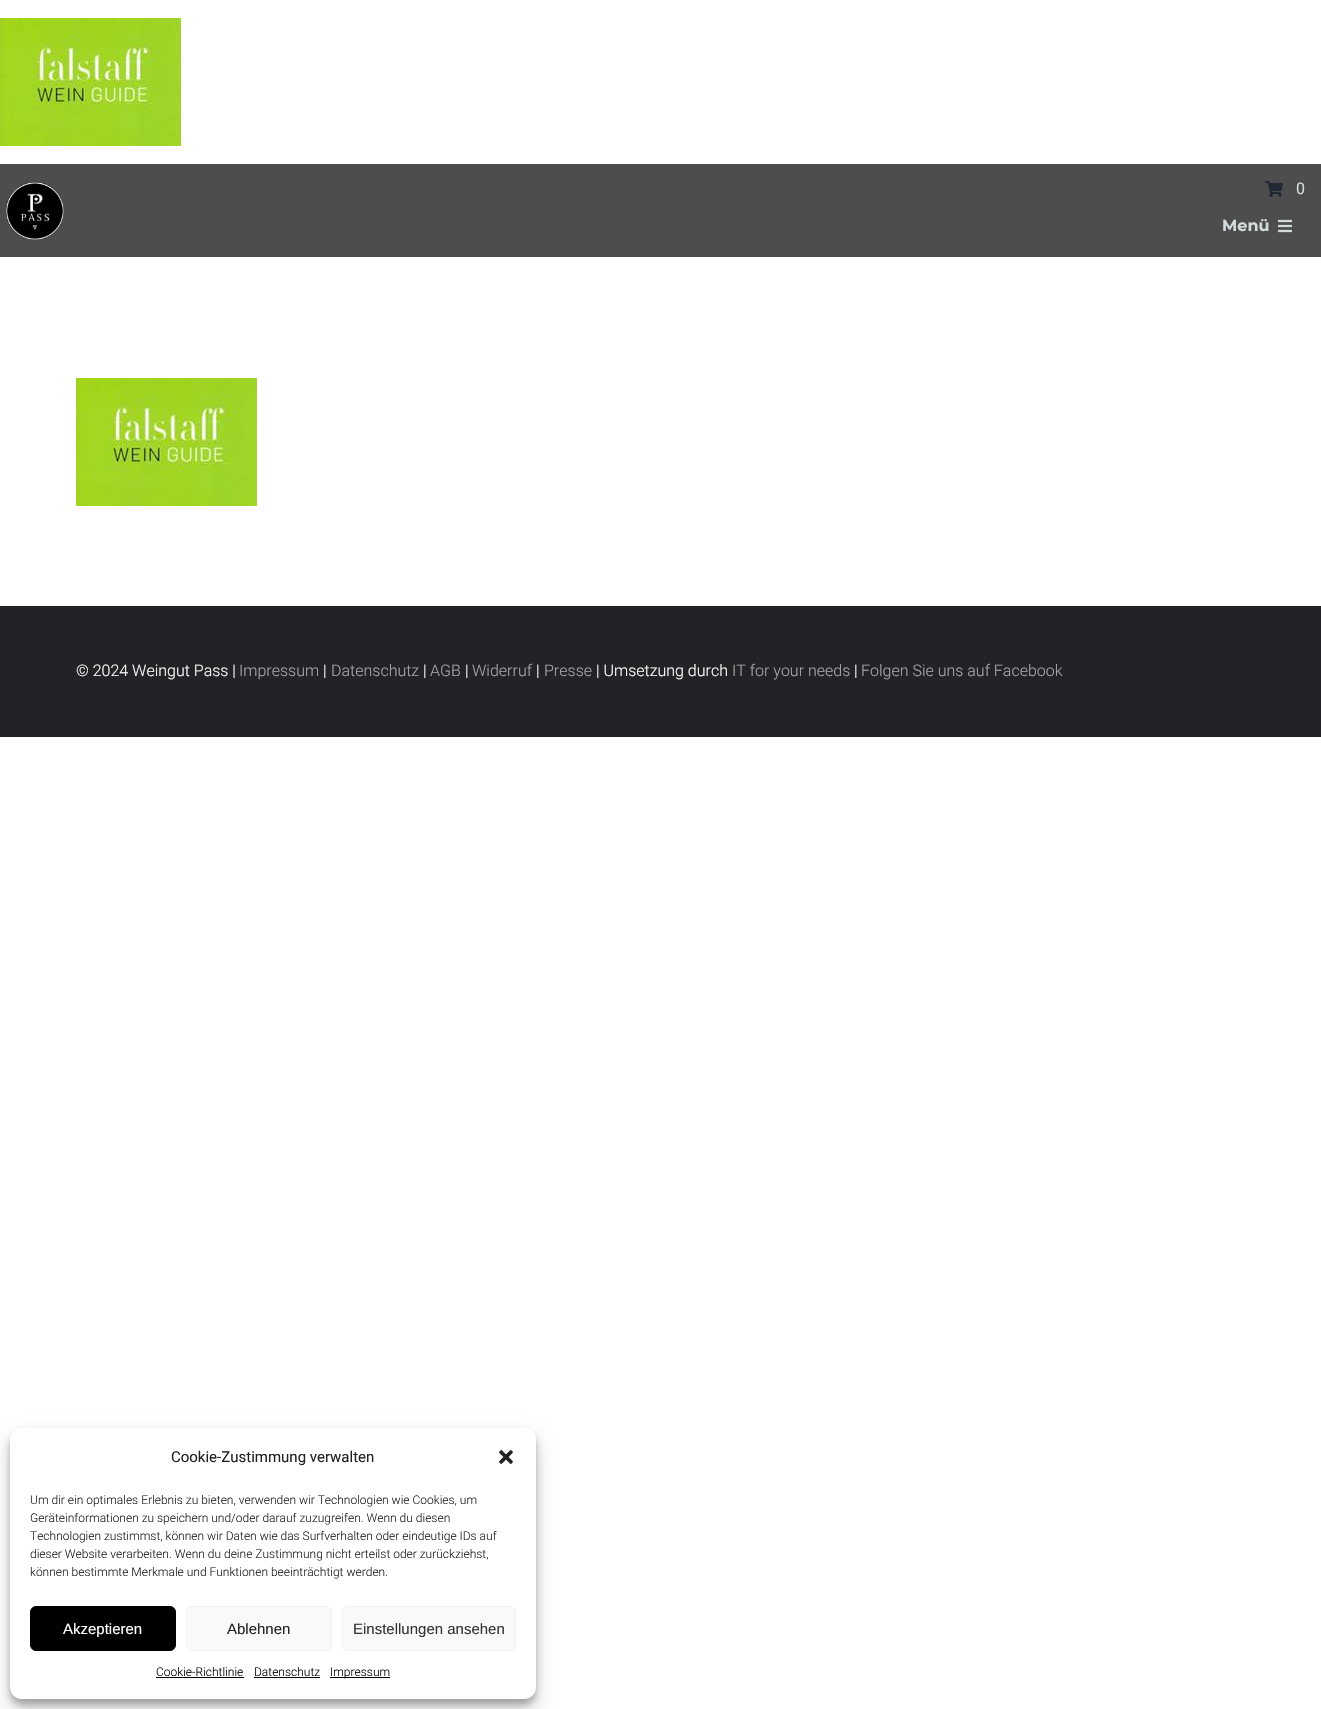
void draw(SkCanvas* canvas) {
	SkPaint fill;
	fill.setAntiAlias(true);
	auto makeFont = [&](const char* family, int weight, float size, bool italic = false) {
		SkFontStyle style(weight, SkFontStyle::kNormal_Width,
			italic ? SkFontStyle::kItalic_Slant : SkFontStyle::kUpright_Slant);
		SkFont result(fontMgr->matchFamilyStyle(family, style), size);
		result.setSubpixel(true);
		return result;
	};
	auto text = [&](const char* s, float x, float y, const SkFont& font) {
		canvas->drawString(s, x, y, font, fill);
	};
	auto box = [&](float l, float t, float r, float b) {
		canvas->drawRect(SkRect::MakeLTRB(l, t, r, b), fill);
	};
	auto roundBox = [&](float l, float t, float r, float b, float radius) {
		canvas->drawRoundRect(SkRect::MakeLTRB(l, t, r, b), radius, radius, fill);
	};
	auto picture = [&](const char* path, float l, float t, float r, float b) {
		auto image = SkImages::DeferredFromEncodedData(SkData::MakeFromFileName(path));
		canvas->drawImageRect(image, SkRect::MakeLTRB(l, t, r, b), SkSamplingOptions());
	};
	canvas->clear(0xFFFFFFFF);
	picture("image0.png", 0, 18, 181, 146);
	fill.setColor(0xFF4D4D4D);
	box(0, 164, 1321, 257);
	picture("image1.png", 6, 182, 64, 240);
	picture("image2.png", 1265, 181, 1283, 197);
	picture("image3.png", 1278, 219, 1292, 233);
	picture("image0.png", 76, 378, 257, 506);
	fill.setColor(0xFF212326);
	box(0, 606, 1321, 737);
	fill.setColor(0x3B000000);
	fill.setMaskFilter(SkMaskFilter::MakeBlur(kNormal_SkBlurStyle, 3));
	canvas->drawRoundRect(SkRect::MakeLTRB(10, 1434, 536, 1705), 12, 12, fill);
	fill.setMaskFilter(nullptr);
	fill.setColor(0x30000000);
	fill.setMaskFilter(SkMaskFilter::MakeBlur(kNormal_SkBlurStyle, 10));
	canvas->drawRoundRect(SkRect::MakeLTRB(10, 1438, 536, 1709), 12, 12, fill);
	fill.setMaskFilter(nullptr);
	fill.setColor(0xFFFFFFFF);
	roundBox(10, 1428, 536, 1699, 12);
	picture("image4.png", 499, 1450, 513, 1464);
	fill.setColor(0xFF000000);
	canvas->drawRoundRect(SkRect::MakeLTRB(30.5f, 1606.5f, 175.5f, 1650.5f), 5.5f, 5.5f, fill);
	fill.setStyle(SkPaint::kStroke_Style);
	fill.setStrokeWidth(1);
	canvas->drawRoundRect(SkRect::MakeLTRB(30.5f, 1606.5f, 175.5f, 1650.5f), 5.5f, 5.5f, fill);
	fill.setStyle(SkPaint::kFill_Style);
	fill.setColor(0xFFF9F9F9);
	canvas->drawRoundRect(SkRect::MakeLTRB(186.5f, 1606.5f, 331.5f, 1650.5f), 5.5f, 5.5f, fill);
	fill.setStyle(SkPaint::kStroke_Style);
	fill.setColor(0xFFF2F2F2);
	canvas->drawRoundRect(SkRect::MakeLTRB(186.5f, 1606.5f, 331.5f, 1650.5f), 5.5f, 5.5f, fill);
	fill.setStyle(SkPaint::kFill_Style);
	fill.setColor(0xFFF9F9F9);
	canvas->drawRoundRect(SkRect::MakeLTRB(342.5f, 1606.5f, 515.5f, 1650.5f), 5.5f, 5.5f, fill);
	fill.setStyle(SkPaint::kStroke_Style);
	fill.setColor(0xFFF2F2F2);
	canvas->drawRoundRect(SkRect::MakeLTRB(342.5f, 1606.5f, 515.5f, 1650.5f), 5.5f, 5.5f, fill);
	fill.setStyle(SkPaint::kFill_Style);
	fill.setColor(0xFF000000);
	box(156, 1677, 244, 1678);
	box(254, 1677, 320, 1678);
	box(330, 1677, 390, 1678);
	auto font1 = makeFont("Roboto", 400, 16);
	fill.setColor(0xFFD3DBDC);
	text("0", 1296, 194, font1);
	auto font2 = makeFont("Montserrat", 700, 16);
	text("Menü", 1222, 231, font2);
	auto font3 = makeFont("Roboto", 300, 16);
	fill.setColor(0xFFFFFFFF);
	text("© 2024 Weingut Pass |", 76, 676, font3);
	fill.setColor(0xFFA6A7A8);
	text("Impressum", 239, 676, font3);
	fill.setColor(0xFFFFFFFF);
	text("|", 323, 676, font3);
	fill.setColor(0xFFA6A7A8);
	text("Datenschutz", 331, 676, font3);
	fill.setColor(0xFFFFFFFF);
	text("|", 423, 676, font3);
	fill.setColor(0xFFA6A7A8);
	text("AGB", 430, 676, font3);
	fill.setColor(0xFFFFFFFF);
	text("|", 465, 676, font3);
	fill.setColor(0xFFA6A7A8);
	text("Widerruf", 472, 676, font3);
	fill.setColor(0xFFFFFFFF);
	text("|", 536, 676, font3);
	fill.setColor(0xFFA6A7A8);
	text("Presse", 544, 676, font3);
	fill.setColor(0xFFFFFFFF);
	text("| Umsetzung durch", 596, 676, font3);
	fill.setColor(0xFFA6A7A8);
	text("IT for your needs", 732, 676, font3);
	fill.setColor(0xFFFFFFFF);
	text("|", 854, 676, font3);
	fill.setColor(0xFFA6A7A8);
	text("Folgen Sie uns auf Facebook", 861, 676, font3);
	auto font4 = makeFont("Roboto", 400, 15);
	fill.setColor(0xFF222222);
	text("Cookie-Zustimmung verwalten", 171, 1462, font4);
	auto font5 = makeFont("Roboto", 300, 12);
	text("Um dir ein optimales Erlebnis zu bieten, verwenden wir Technologien wie Cookies, um", 30, 1504, font5);
	text("Geräteinformationen zu speichern und/oder darauf zuzugreifen. Wenn du diesen", 30, 1522, font5);
	text("Technologien zustimmst, können wir Daten wie das Surfverhalten oder eindeutige IDs auf", 30, 1540, font5);
	text("dieser Website verarbeiten. Wenn du deine Zustimmung nicht erteilst oder zurückziehst,", 30, 1558, font5);
	text("können bestimmte Merkmale und Funktionen beeinträchtigt werden.", 30, 1576, font5);
	auto font6 = makeFont("Liberation Sans", 400, 15);
	fill.setColor(0xFFFFFFFF);
	text("Akzeptieren", 63, 1634, font6);
	fill.setColor(0xFF222222);
	text("Ablehnen", 227, 1634, font6);
	fill.setColor(0xFF333333);
	text("Einstellungen ansehen", 353, 1634, font6);
	fill.setColor(0xFF000000);
	text("Cookie-Richtlinie", 156, 1676, font5);
	text("Datenschutz", 254, 1676, font5);
	text("Impressum", 330, 1676, font5);
}
